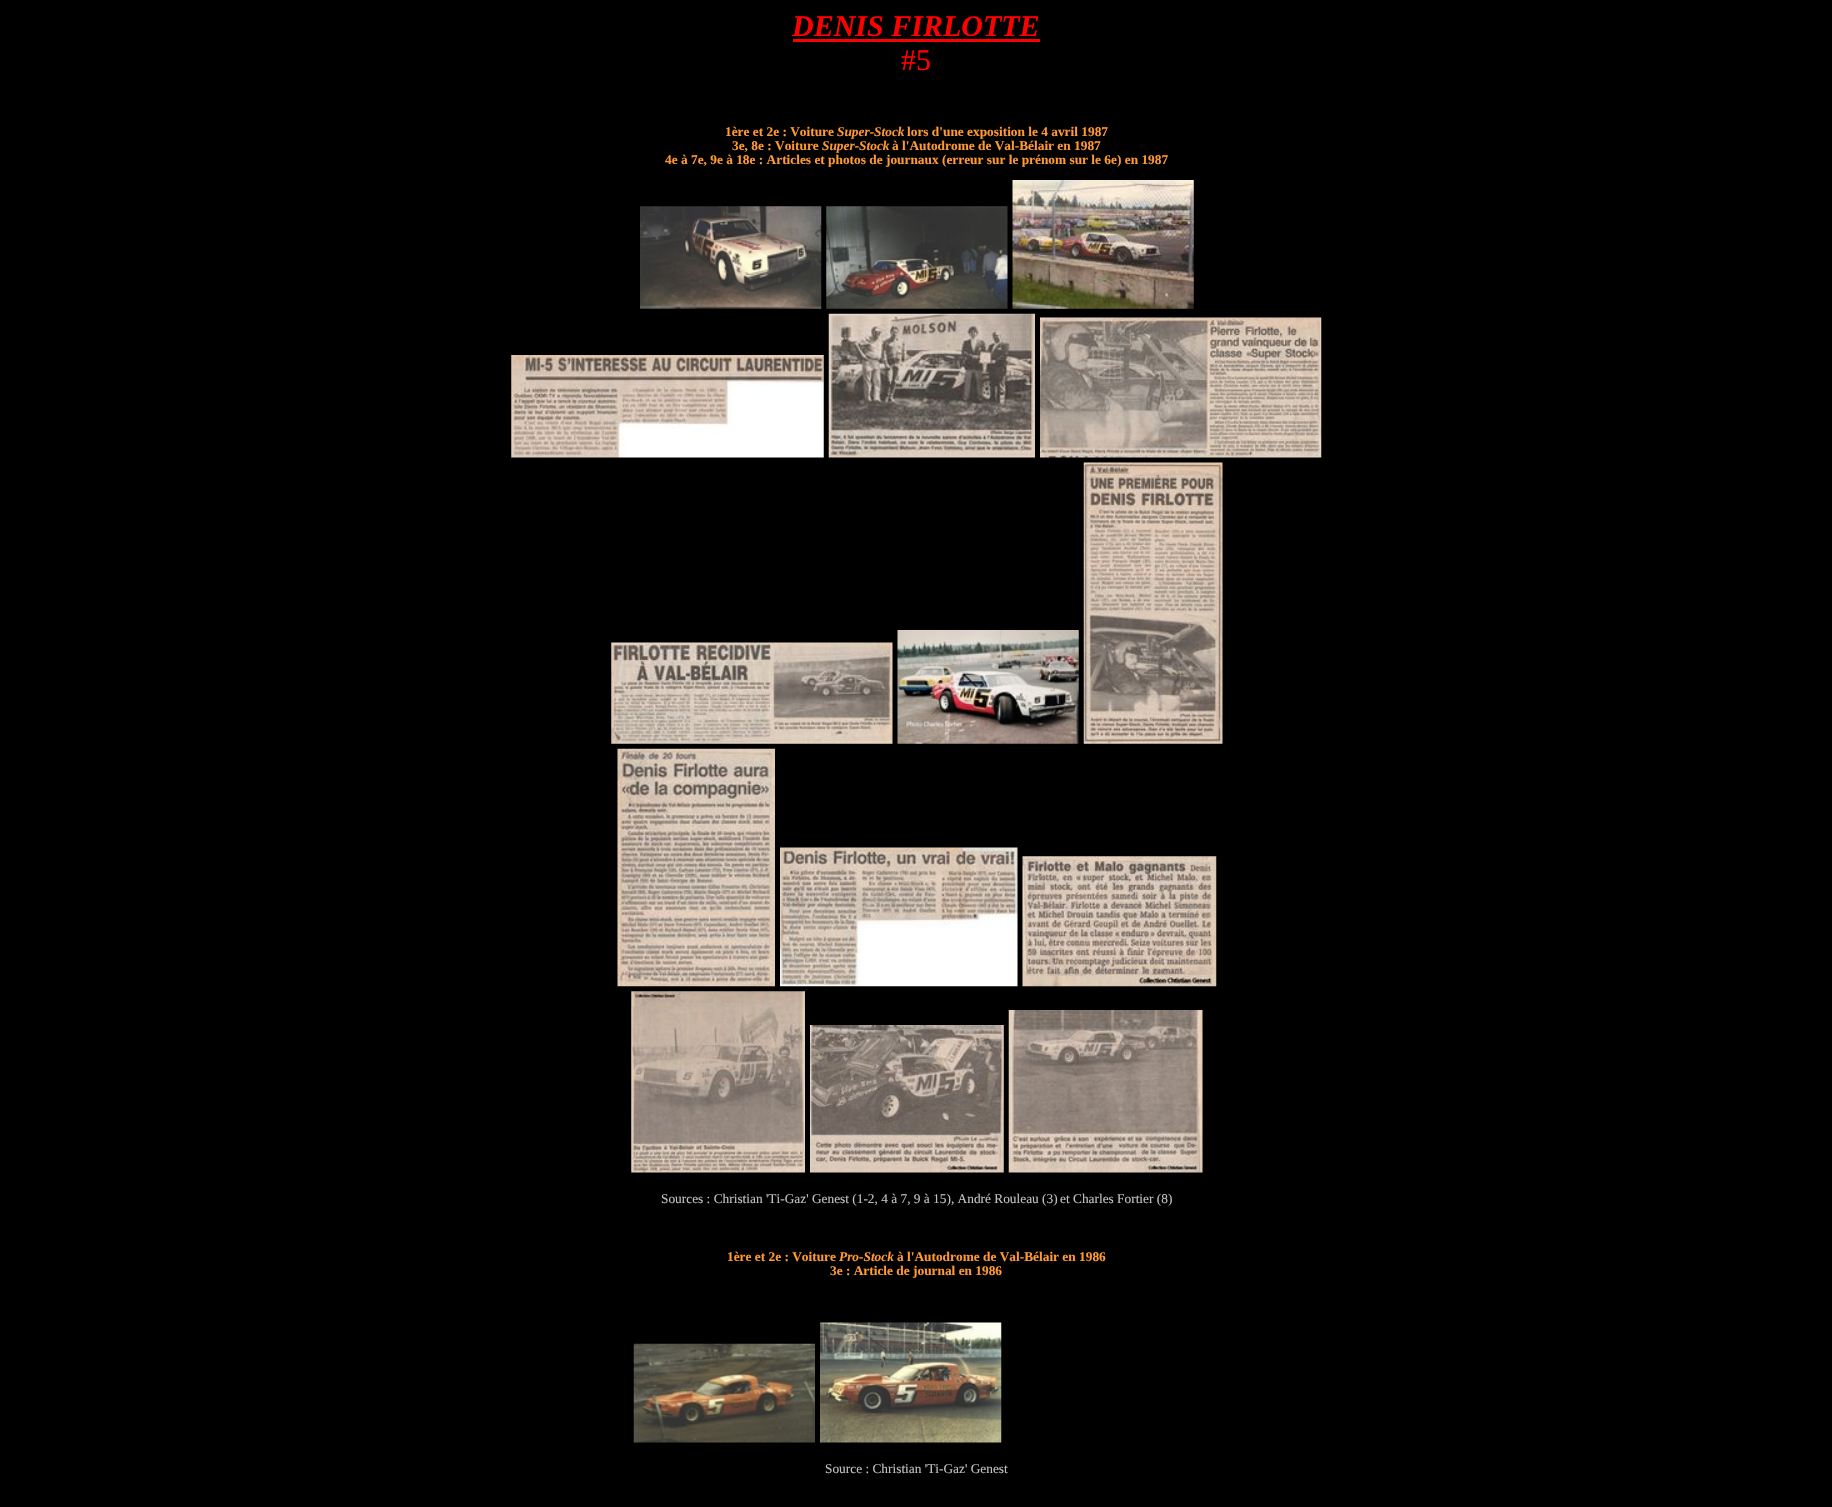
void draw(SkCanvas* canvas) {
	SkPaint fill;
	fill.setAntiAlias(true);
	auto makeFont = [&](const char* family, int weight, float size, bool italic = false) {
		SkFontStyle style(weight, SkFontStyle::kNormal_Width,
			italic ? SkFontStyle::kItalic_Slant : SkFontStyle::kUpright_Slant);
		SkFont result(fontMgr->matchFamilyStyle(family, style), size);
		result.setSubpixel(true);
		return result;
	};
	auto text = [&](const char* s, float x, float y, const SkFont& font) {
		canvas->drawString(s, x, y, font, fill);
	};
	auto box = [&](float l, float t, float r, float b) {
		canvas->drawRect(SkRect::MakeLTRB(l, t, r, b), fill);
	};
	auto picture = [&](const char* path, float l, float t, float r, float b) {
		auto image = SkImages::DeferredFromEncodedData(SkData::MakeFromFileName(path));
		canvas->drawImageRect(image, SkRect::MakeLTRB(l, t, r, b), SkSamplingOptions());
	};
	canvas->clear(0xFF000000);
	fill.setColor(0xFFFF0000);
	box(793, 39, 1040, 42);
	picture("image0.png", 640, 206, 822, 309);
	picture("image1.png", 826, 206, 1008, 309);
	picture("image2.png", 1012, 180, 1194, 309);
	picture("image3.png", 511, 355, 824, 458);
	picture("image4.png", 828, 313, 1035, 458);
	picture("image5.png", 1040, 317, 1322, 458);
	picture("image6.png", 611, 642, 893, 744);
	picture("image7.png", 897, 630, 1079, 744);
	picture("image8.png", 1083, 462, 1223, 744);
	picture("image9.png", 617, 748, 775, 987);
	picture("image10.png", 780, 847, 1018, 987);
	picture("image11.png", 1022, 856, 1217, 987);
	picture("image12.png", 631, 991, 805, 1173);
	picture("image13.png", 810, 1025, 1004, 1173);
	picture("image14.png", 1008, 1010, 1203, 1173);
	picture("image15.png", 633, 1343, 815, 1443);
	picture("image16.png", 820, 1322, 1002, 1443);
	auto font1 = makeFont("Liberation Serif", 700, 30, true);
	text("DENIS FIRLOTTE", 792, 36, font1);
	auto font2 = makeFont("Liberation Serif", 400, 30);
	text("#5", 901, 70, font2);
	auto font3 = makeFont("Liberation Serif", 700, 13.35f);
	fill.setColor(0xFFFF9933);
	text("1ère et 2e : Voiture", 725, 136, font3);
	auto font4 = makeFont("Liberation Serif", 700, 13.35f, true);
	text("Super-Stock", 837, 136, font4);
	text("lors d'une exposition le 4 avril 1987", 907, 136, font3);
	text("3e, 8e : Voiture", 732, 150, font3);
	text("Super-Stock", 822, 150, font4);
	text("à l'Autodrome de Val-Bélair en 1987", 892, 150, font3);
	text("4e à 7e, 9e à 18e : Articles et photos de journaux (erreur sur le prénom sur le 6e) en 1987", 665, 164, font3);
	auto font5 = makeFont("Liberation Serif", 400, 13.35f);
	fill.setColor(0xFFC0C0C0);
	text("Sources : Christian 'Ti-Gaz' Genest (1-2, 4 à 7, 9 à 15), André Rouleau (3)", 661, 1203, font5);
	text("et Charles Fortier (8)", 1060, 1203, font5);
	fill.setColor(0xFFFF9933);
	text("1ère et 2e : Voiture", 727, 1261, font3);
	text("Pro-Stock", 839, 1261, font4);
	text("à l'Autodrome de Val-Bélair en 1986", 897, 1261, font3);
	text("3e : Article de journal en 1986", 830, 1275, font3);
	fill.setColor(0xFFC0C0C0);
	text("Source : Christian 'Ti-Gaz' Genest", 825, 1473, font5);
}
